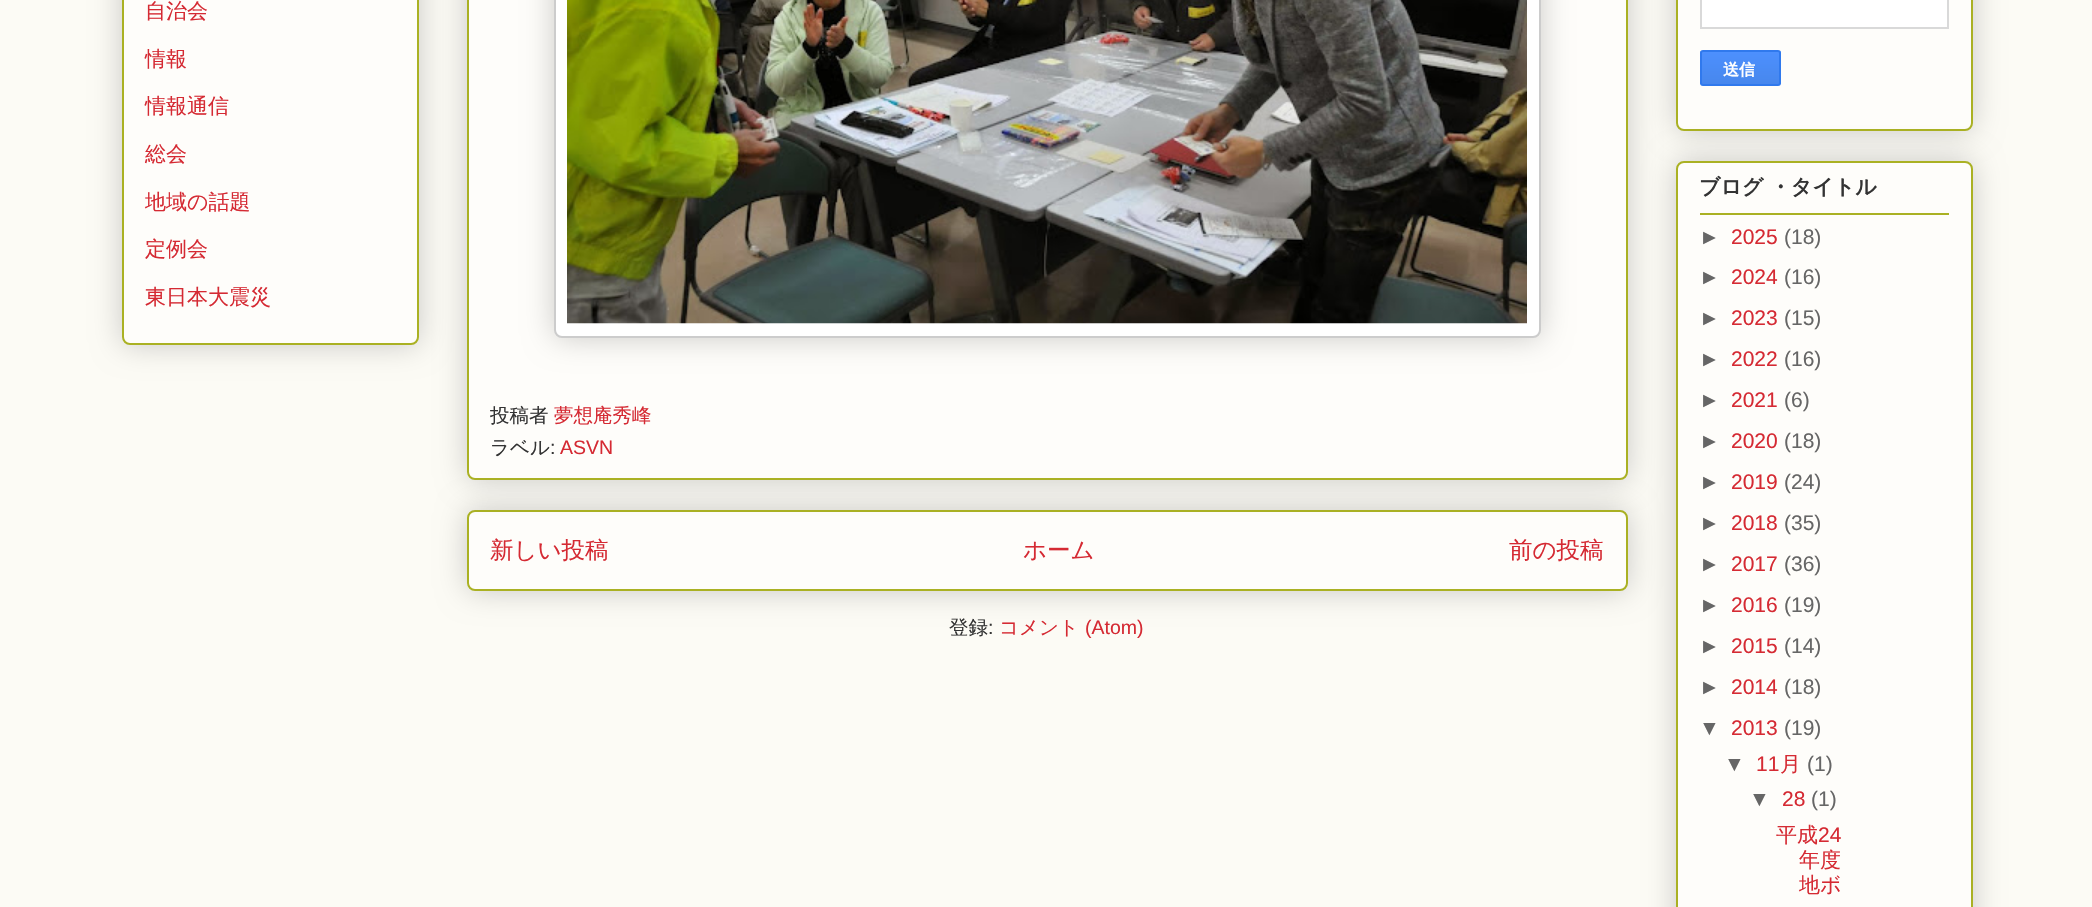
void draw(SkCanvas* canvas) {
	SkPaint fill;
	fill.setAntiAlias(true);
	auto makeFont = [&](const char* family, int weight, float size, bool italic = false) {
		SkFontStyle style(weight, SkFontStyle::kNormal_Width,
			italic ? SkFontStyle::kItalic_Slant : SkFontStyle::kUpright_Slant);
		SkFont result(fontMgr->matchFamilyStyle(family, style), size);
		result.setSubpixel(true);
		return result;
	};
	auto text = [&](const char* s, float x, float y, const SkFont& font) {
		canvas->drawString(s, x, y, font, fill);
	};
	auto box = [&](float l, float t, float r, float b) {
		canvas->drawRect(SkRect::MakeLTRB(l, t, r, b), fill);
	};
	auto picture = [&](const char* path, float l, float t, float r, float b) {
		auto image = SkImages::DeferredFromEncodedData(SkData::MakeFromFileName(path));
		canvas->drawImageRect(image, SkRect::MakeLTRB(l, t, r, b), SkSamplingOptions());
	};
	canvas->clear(0xFFFCFBF5);
	fill.setColor(0x33000000);
	fill.setMaskFilter(SkMaskFilter::MakeBlur(kNormal_SkBlurStyle, 15));
	canvas->drawRoundRect(SkRect::MakeLTRB(122, -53, 419, 345), 8, 8, fill);
	fill.setMaskFilter(nullptr);
	fill.setColor(0xFFFEFDFA);
	canvas->drawRoundRect(SkRect::MakeLTRB(123, -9, 418, 344), 7, 7, fill);
	fill.setStyle(SkPaint::kStroke_Style);
	fill.setStrokeWidth(2);
	fill.setColor(0xFFAAB123);
	canvas->drawRoundRect(SkRect::MakeLTRB(123, -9, 418, 344), 7, 7, fill);
	fill.setStyle(SkPaint::kFill_Style);
	fill.setColor(0x33000000);
	fill.setMaskFilter(SkMaskFilter::MakeBlur(kNormal_SkBlurStyle, 15));
	canvas->drawRoundRect(SkRect::MakeLTRB(467, 510, 1628, 591), 8, 8, fill);
	fill.setMaskFilter(nullptr);
	fill.setColor(0xFFFEFDFA);
	canvas->drawRoundRect(SkRect::MakeLTRB(468, 511, 1627, 590), 7, 7, fill);
	fill.setStyle(SkPaint::kStroke_Style);
	fill.setColor(0xFFAAB123);
	canvas->drawRoundRect(SkRect::MakeLTRB(468, 511, 1627, 590), 7, 7, fill);
	fill.setStyle(SkPaint::kFill_Style);
	fill.setColor(0x33000000);
	fill.setMaskFilter(SkMaskFilter::MakeBlur(kNormal_SkBlurStyle, 15));
	canvas->drawRoundRect(SkRect::MakeLTRB(467, -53, 1628, 480), 8, 8, fill);
	fill.setMaskFilter(nullptr);
	fill.setColor(0xFFFEFDFA);
	canvas->drawRoundRect(SkRect::MakeLTRB(468, -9, 1627, 479), 7, 7, fill);
	fill.setStyle(SkPaint::kStroke_Style);
	fill.setColor(0xFFAAB123);
	canvas->drawRoundRect(SkRect::MakeLTRB(468, -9, 1627, 479), 7, 7, fill);
	fill.setStyle(SkPaint::kFill_Style);
	fill.setColor(0x33000000);
	fill.setMaskFilter(SkMaskFilter::MakeBlur(kNormal_SkBlurStyle, 15));
	canvas->drawRoundRect(SkRect::MakeLTRB(554, -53, 1541, 338), 8, 8, fill);
	fill.setMaskFilter(nullptr);
	fill.setColor(0xFFFFFFFF);
	canvas->drawRoundRect(SkRect::MakeLTRB(555, -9, 1540, 337), 7, 7, fill);
	fill.setStyle(SkPaint::kStroke_Style);
	fill.setColor(0xFFCCCCCC);
	canvas->drawRoundRect(SkRect::MakeLTRB(555, -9, 1540, 337), 7, 7, fill);
	picture("image0.png", 567, 0, 1527, 324);
	fill.setStyle(SkPaint::kFill_Style);
	fill.setColor(0x33000000);
	fill.setMaskFilter(SkMaskFilter::MakeBlur(kNormal_SkBlurStyle, 15));
	canvas->drawRoundRect(SkRect::MakeLTRB(1676, -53, 1973, 131), 8, 8, fill);
	fill.setMaskFilter(nullptr);
	fill.setColor(0xFFFEFDFA);
	canvas->drawRoundRect(SkRect::MakeLTRB(1677, -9, 1972, 130), 7, 7, fill);
	fill.setStyle(SkPaint::kStroke_Style);
	fill.setColor(0xFFAAB123);
	canvas->drawRoundRect(SkRect::MakeLTRB(1677, -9, 1972, 130), 7, 7, fill);
	fill.setStyle(SkPaint::kFill_Style);
	fill.setColor(0xFFFFFFFF);
	box(1702, 0, 1947, 27);
	fill.setColor(0xFFD9D9D9);
	box(1947, 0, 1949, 29);
	box(1700, 27, 1949, 29);
	box(1700, 0, 1702, 29);
	canvas->save();
	canvas->clipPath(SkPathBuilder().moveTo(1703, 50).lineTo(1778, 50).cubicTo(1779.5f, 50, 1781, 51.5f, 1781, 53).lineTo(1781, 83).cubicTo(1781, 84.5f, 1779.5f, 86, 1778, 86).lineTo(1703, 86).cubicTo(1701.5f, 86, 1700, 84.5f, 1700, 83).lineTo(1700, 53).cubicTo(1700, 51.5f, 1701.5f, 50, 1703, 50).close().detach(), true);
	{
		const SkColor colors[] = {0xFF4D90FE, 0xFF4787ED};
		const float stops[] = {0, 1};
		const SkPoint ends[] = {{1740, 51}, {1740, 84}};
		fill.setShader(SkGradientShader::MakeLinear(ends, colors, stops, 2, SkTileMode::kClamp));
		fill.setAlpha(255);
	}
	box(1700, 51, 1781, 84);
	canvas->restore();
	fill.setStyle(SkPaint::kStroke_Style);
	fill.setShader(nullptr);
	fill.setColor(0xFF3079ED);
	canvas->drawRoundRect(SkRect::MakeLTRB(1701, 51, 1780, 85), 2, 2, fill);
	fill.setStyle(SkPaint::kFill_Style);
	fill.setColor(0x33000000);
	fill.setMaskFilter(SkMaskFilter::MakeBlur(kNormal_SkBlurStyle, 15));
	canvas->drawRoundRect(SkRect::MakeLTRB(1676, 161, 1973, 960), 8, 8, fill);
	fill.setMaskFilter(nullptr);
	fill.setColor(0xFFFEFDFA);
	canvas->drawRoundRect(SkRect::MakeLTRB(1677, 162, 1972, 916), 7, 7, fill);
	fill.setStyle(SkPaint::kStroke_Style);
	fill.setColor(0xFFAAB123);
	canvas->drawRoundRect(SkRect::MakeLTRB(1677, 162, 1972, 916), 7, 7, fill);
	fill.setStyle(SkPaint::kFill_Style);
	box(1700, 213, 1949, 215);
	auto font1 = makeFont("WenQuanYi Zen Hei", 500, 21);
	fill.setColor(0xFFD52A33);
	text("自治会", 145, 18, font1);
	text("情報", 145, 66, font1);
	text("情報通信", 145, 113, font1);
	text("総会", 145, 161, font1);
	text("地域の話題", 145, 209, font1);
	text("定例会", 145, 256, font1);
	text("東日本大震災", 145, 304, font1);
	auto font2 = makeFont("WenQuanYi Zen Hei", 500, 19.5f);
	fill.setColor(0xFF333333);
	text("投稿者", 490, 422, font2);
	fill.setColor(0xFFD52A33);
	text("夢想庵秀峰", 554, 422, font2);
	fill.setColor(0xFF333333);
	text("ラベル", 490, 454, font2);
	auto font3 = makeFont("Liberation Sans", 400, 19.5f);
	text(":", 550, 454, font3);
	fill.setColor(0xFFD52A33);
	text("ASVN", 560, 454, font3);
	auto font4 = makeFont("WenQuanYi Zen Hei", 500, 23.5f);
	text("新しい投稿", 490, 558, font4);
	text("ホーム", 1023, 558, font4);
	text("前の投稿", 1509, 558, font4);
	fill.setColor(0xFF333333);
	text("登録", 949, 634, font2);
	text(":", 988, 634, font3);
	fill.setColor(0xFFD52A33);
	text("コメント", 999, 634, font2);
	text("(Atom)", 1085, 634, font3);
	auto font5 = makeFont("WenQuanYi Zen Hei", 700, 16);
	fill.setColor(0xFFFFFFFF);
	text("送信", 1723, 75, font5);
	auto font6 = makeFont("WenQuanYi Zen Hei", 700, 21);
	fill.setColor(0xFF333333);
	text("ブログ ・タイトル", 1699, 194, font6);
	auto font7 = makeFont("Liberation Sans", 400, 21);
	fill.setColor(0xFF666666);
	text("►", 1699, 244, font7);
	fill.setColor(0xFFD52A33);
	text("2025", 1731, 244, font7);
	fill.setColor(0xFF666666);
	text("(18)", 1784, 244, font7);
	text("►", 1699, 284, font7);
	fill.setColor(0xFFD52A33);
	text("2024", 1731, 284, font7);
	fill.setColor(0xFF666666);
	text("(16)", 1784, 284, font7);
	text("►", 1699, 325, font7);
	fill.setColor(0xFFD52A33);
	text("2023", 1731, 325, font7);
	fill.setColor(0xFF666666);
	text("(15)", 1784, 325, font7);
	text("►", 1699, 366, font7);
	fill.setColor(0xFFD52A33);
	text("2022", 1731, 366, font7);
	fill.setColor(0xFF666666);
	text("(16)", 1784, 366, font7);
	text("►", 1699, 407, font7);
	fill.setColor(0xFFD52A33);
	text("2021", 1731, 407, font7);
	fill.setColor(0xFF666666);
	text("(6)", 1784, 407, font7);
	text("►", 1699, 448, font7);
	fill.setColor(0xFFD52A33);
	text("2020", 1731, 448, font7);
	fill.setColor(0xFF666666);
	text("(18)", 1784, 448, font7);
	text("►", 1699, 489, font7);
	fill.setColor(0xFFD52A33);
	text("2019", 1731, 489, font7);
	fill.setColor(0xFF666666);
	text("(24)", 1784, 489, font7);
	text("►", 1699, 530, font7);
	fill.setColor(0xFFD52A33);
	text("2018", 1731, 530, font7);
	fill.setColor(0xFF666666);
	text("(35)", 1784, 530, font7);
	text("►", 1699, 571, font7);
	fill.setColor(0xFFD52A33);
	text("2017", 1731, 571, font7);
	fill.setColor(0xFF666666);
	text("(36)", 1784, 571, font7);
	text("►", 1699, 612, font7);
	fill.setColor(0xFFD52A33);
	text("2016", 1731, 612, font7);
	fill.setColor(0xFF666666);
	text("(19)", 1784, 612, font7);
	text("►", 1699, 653, font7);
	fill.setColor(0xFFD52A33);
	text("2015", 1731, 653, font7);
	fill.setColor(0xFF666666);
	text("(14)", 1784, 653, font7);
	text("►", 1699, 694, font7);
	fill.setColor(0xFFD52A33);
	text("2014", 1731, 694, font7);
	fill.setColor(0xFF666666);
	text("(18)", 1784, 694, font7);
	text("▼", 1699, 735, font7);
	fill.setColor(0xFFD52A33);
	text("2013", 1731, 735, font7);
	fill.setColor(0xFF666666);
	text("(19)", 1784, 735, font7);
	text("▼", 1724, 771, font7);
	fill.setColor(0xFFD52A33);
	text("11", 1756, 771, font7);
	text("月", 1780, 771, font1);
	fill.setColor(0xFF666666);
	text("(1)", 1807, 771, font7);
	text("▼", 1749, 806, font7);
	fill.setColor(0xFFD52A33);
	text("28", 1782, 806, font7);
	fill.setColor(0xFF666666);
	text("(1)", 1811, 806, font7);
	fill.setColor(0xFFD52A33);
	text("平成", 1776, 842, font1);
	text("24", 1818, 842, font7);
	text("年度", 1799, 867, font1);
	text("地ボ", 1799, 892, font1);
}
